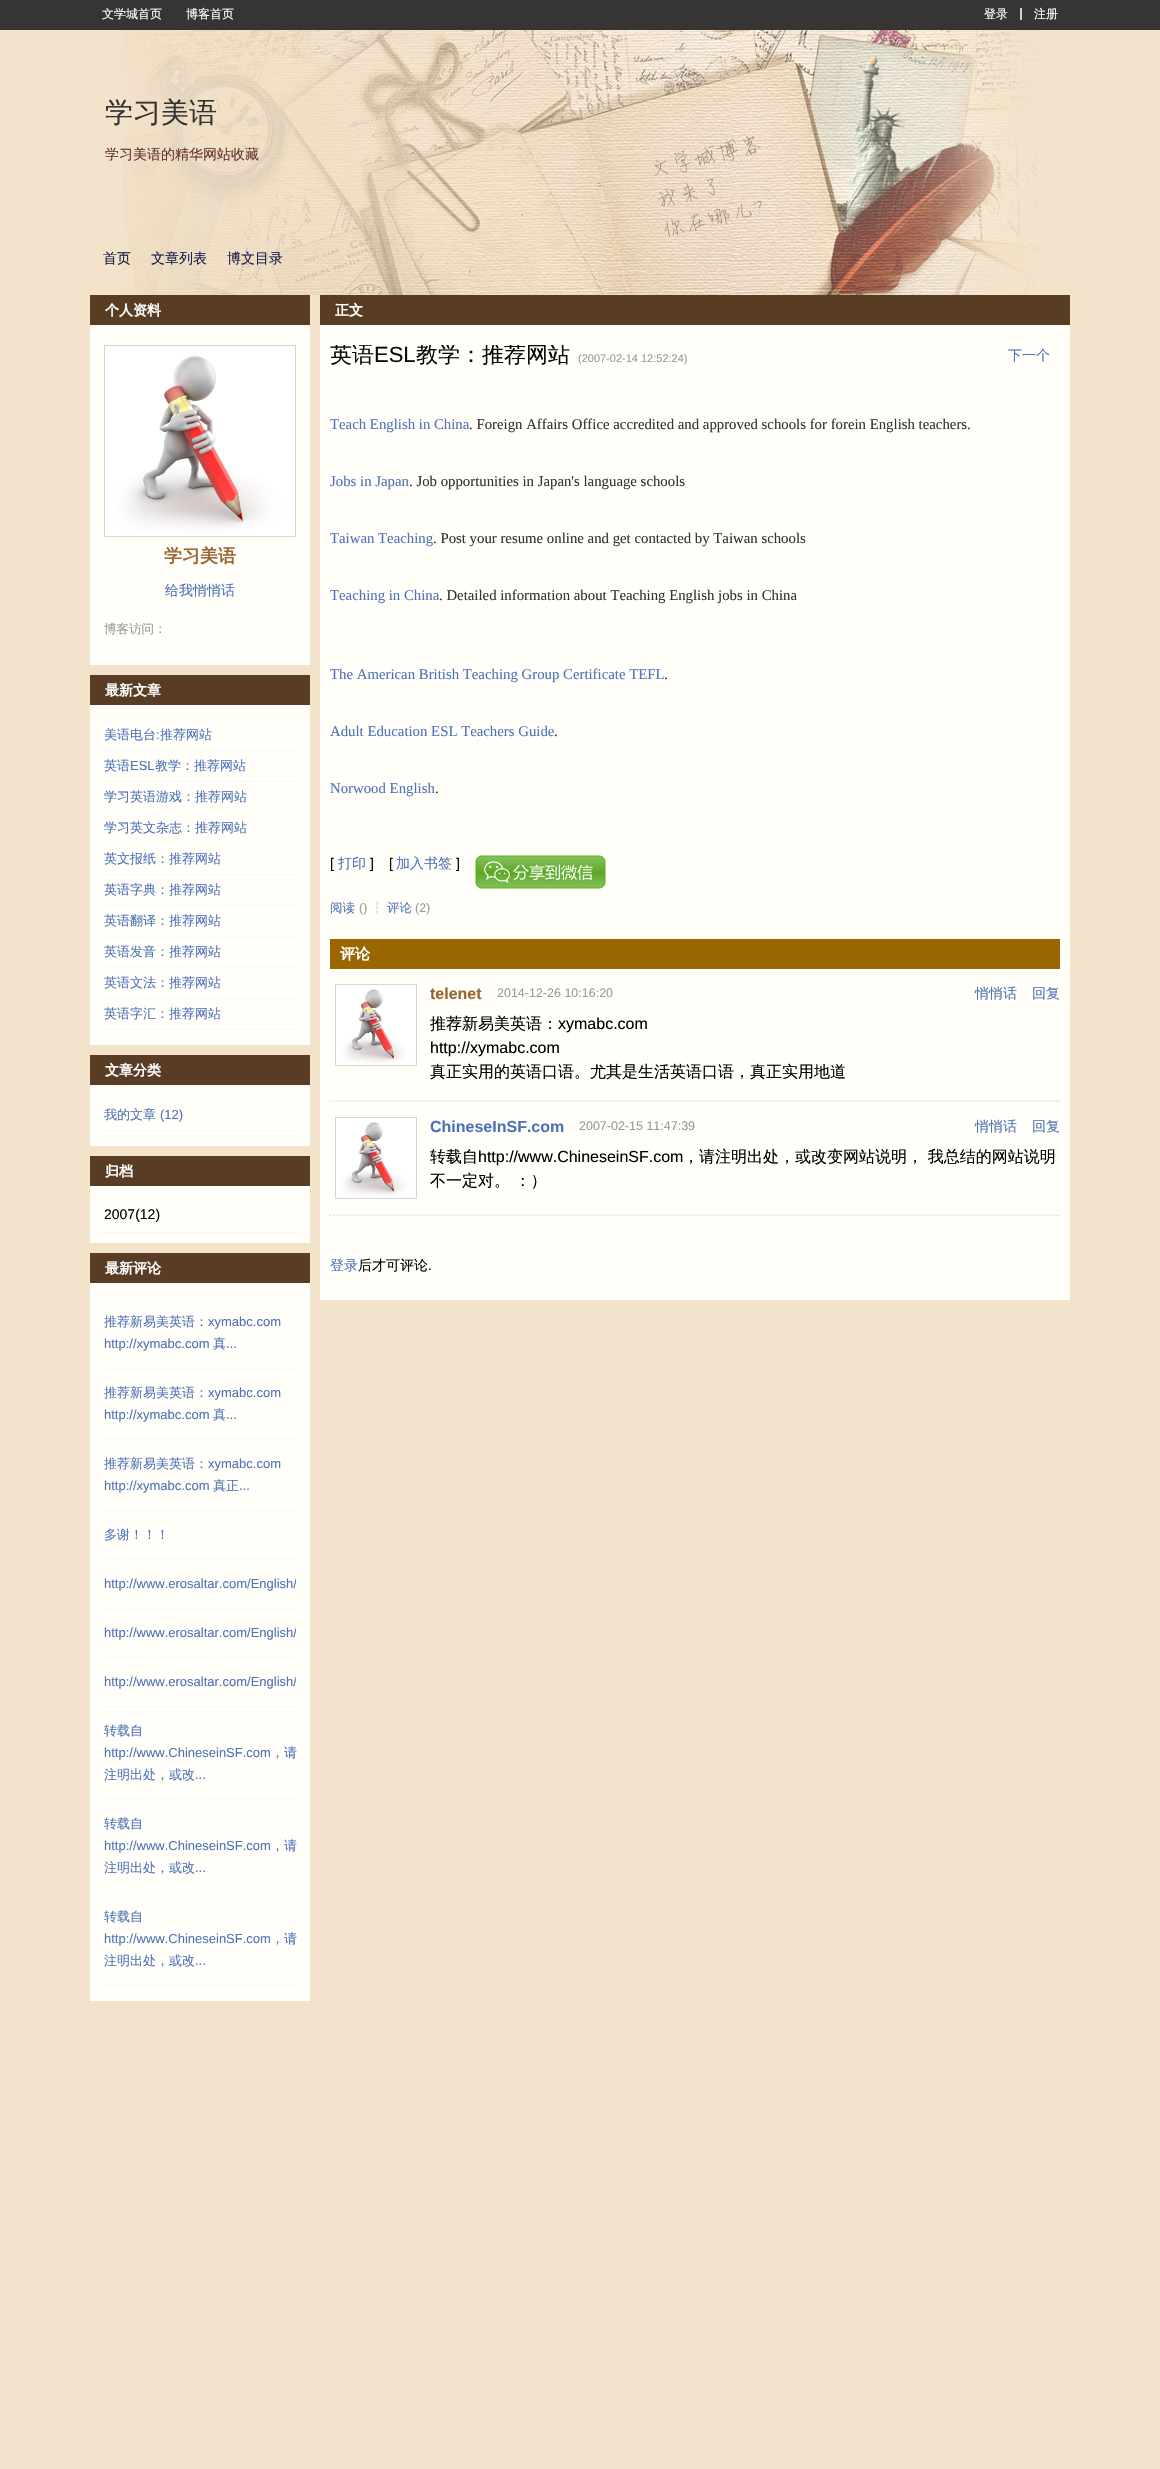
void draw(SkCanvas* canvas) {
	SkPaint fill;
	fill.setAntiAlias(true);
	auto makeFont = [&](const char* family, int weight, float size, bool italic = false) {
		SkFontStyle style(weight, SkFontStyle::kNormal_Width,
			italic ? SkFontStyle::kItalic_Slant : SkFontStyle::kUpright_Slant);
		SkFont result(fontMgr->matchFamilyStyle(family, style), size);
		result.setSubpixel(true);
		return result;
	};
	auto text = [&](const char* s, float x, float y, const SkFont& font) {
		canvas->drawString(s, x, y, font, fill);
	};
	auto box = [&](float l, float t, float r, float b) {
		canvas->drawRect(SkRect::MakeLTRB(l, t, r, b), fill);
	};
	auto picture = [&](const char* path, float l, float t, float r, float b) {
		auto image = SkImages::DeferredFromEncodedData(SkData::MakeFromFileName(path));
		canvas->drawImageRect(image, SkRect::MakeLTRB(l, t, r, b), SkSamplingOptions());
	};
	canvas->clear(0xFFF3E3CA);
	fill.setColor(0xFF373533);
	box(0, 0, 1160, 30);
	fill.setColor(0xFFD0CECC);
	box(1020, 8, 1022, 20);
	picture("image0.png", 122, 30, 1042, 295);
	fill.setColor(0xFF583D24);
	box(90, 295, 310, 325);
	fill.setColor(0xFFFFFEF9);
	box(90, 325, 310, 665);
	fill.setStyle(SkPaint::kStroke_Style);
	fill.setStrokeWidth(1);
	fill.setColor(0xFFD3D7D4);
	canvas->drawRect(SkRect::MakeLTRB(104.5f, 345.5f, 295.5f, 536.5f), fill);
	picture("image1.png", 105, 346, 295, 536);
	fill.setStyle(SkPaint::kFill_Style);
	fill.setColor(0xFFF8F8F8);
	box(104, 644, 296, 645);
	fill.setColor(0xFF583D24);
	box(90, 675, 310, 705);
	fill.setColor(0xFFFFFEF9);
	box(90, 705, 310, 1045);
	fill.setColor(0xFFF8F8F8);
	box(104, 750, 296, 751);
	box(104, 781, 296, 782);
	box(104, 812, 296, 813);
	box(104, 843, 296, 844);
	box(104, 874, 296, 875);
	box(104, 905, 296, 906);
	box(104, 936, 296, 937);
	box(104, 967, 296, 968);
	box(104, 998, 296, 999);
	box(104, 1029, 296, 1030);
	fill.setColor(0xFF583D24);
	box(90, 1055, 310, 1085);
	fill.setColor(0xFFFFFEF9);
	box(90, 1085, 310, 1146);
	fill.setColor(0xFFF8F8F8);
	box(104, 1130, 296, 1131);
	fill.setColor(0xFF583D24);
	box(90, 1156, 310, 1186);
	fill.setColor(0xFFFFFEF9);
	box(90, 1186, 310, 1243);
	fill.setStyle(SkPaint::kStroke_Style);
	fill.setColor(0xFFEEEEEE);
	fill.setPathEffect(SkDashPathEffect::Make({{1, 1}}, 0));
	canvas->drawPath(SkPathBuilder().moveTo(104, 1232.5f).lineTo(296, 1232.5f).detach(), fill);
	fill.setPathEffect(nullptr);
	fill.setStyle(SkPaint::kFill_Style);
	fill.setColor(0xFF583D24);
	box(90, 1253, 310, 1283);
	fill.setColor(0xFFFFFEF9);
	box(90, 1283, 310, 2001);
	fill.setColor(0xFFF8F8F8);
	box(104, 1368, 296, 1369);
	box(104, 1439, 296, 1440);
	box(104, 1510, 296, 1511);
	box(104, 1559, 296, 1560);
	box(104, 1608, 296, 1609);
	box(104, 1657, 296, 1658);
	box(104, 1706, 296, 1707);
	box(104, 1799, 296, 1800);
	box(104, 1892, 296, 1893);
	box(104, 1985, 296, 1986);
	fill.setColor(0xFF583D24);
	box(320, 295, 1070, 325);
	fill.setColor(0xFFFFFEF9);
	box(320, 325, 1070, 1300);
	picture("image2.png", 475, 855, 606, 889);
	fill.setColor(0xFF996600);
	box(330, 939, 1060, 969);
	fill.setStyle(SkPaint::kStroke_Style);
	fill.setColor(0xFFD3D7D4);
	canvas->drawRect(SkRect::MakeLTRB(335.5f, 984.5f, 416.5f, 1065.5f), fill);
	picture("image3.png", 336, 985, 416, 1065);
	picture("image4.png", 330, 1100, 1059, 1101);
	fill.setColor(0xFFDDDDDD);
	fill.setPathEffect(SkDashPathEffect::Make({{1, 1}}, 0));
	canvas->drawPath(SkPathBuilder().moveTo(330, 1101.5f).lineTo(1060, 1101.5f).detach(), fill);
	fill.setPathEffect(nullptr);
	fill.setColor(0xFFD3D7D4);
	canvas->drawRect(SkRect::MakeLTRB(335.5f, 1117.5f, 416.5f, 1198.5f), fill);
	picture("image3.png", 336, 1118, 416, 1198);
	picture("image4.png", 330, 1214, 1059, 1215);
	fill.setColor(0xFFDDDDDD);
	fill.setPathEffect(SkDashPathEffect::Make({{1, 1}}, 0));
	canvas->drawPath(SkPathBuilder().moveTo(330, 1215.5f).lineTo(1060, 1215.5f).detach(), fill);
	fill.setPathEffect(nullptr);
	auto font1 = makeFont("WenQuanYi Zen Hei", 500, 12);
	fill.setStyle(SkPaint::kFill_Style);
	fill.setColor(0xFFFFFFFF);
	text("文学城首页", 102, 18, font1);
	text("博客首页", 186, 18, font1);
	text("登录", 984, 18, font1);
	text("注册", 1034, 18, font1);
	auto font2 = makeFont("WenQuanYi Zen Hei", 500, 28);
	fill.setColor(0xFF333333);
	text("学习美语", 105, 122, font2);
	auto font3 = makeFont("WenQuanYi Zen Hei", 500, 14);
	fill.setColor(0xFF663333);
	text("学习美语的精华网站收藏", 105, 159, font3);
	fill.setColor(0xFF181D4B);
	text("首页", 103, 263, font3);
	text("文章列表", 151, 263, font3);
	text("博文目录", 227, 263, font3);
	auto font4 = makeFont("WenQuanYi Zen Hei", 700, 14);
	fill.setColor(0xFFFFFFFF);
	text("个人资料", 105, 315, font4);
	auto font5 = makeFont("WenQuanYi Zen Hei", 700, 18);
	fill.setColor(0xFF996633);
	text("学习美语", 164, 562, font5);
	fill.setColor(0xFF4E72B8);
	text("给我悄悄话", 165, 595, font3);
	auto font6 = makeFont("WenQuanYi Zen Hei", 500, 12.5f);
	fill.setColor(0xFF999999);
	text("博客访问：", 104, 633, font6);
	fill.setColor(0xFFFFFFFF);
	text("最新文章", 105, 695, font4);
	auto font7 = makeFont("WenQuanYi Zen Hei", 500, 13);
	fill.setColor(0xFF4E72B8);
	text("美语电台 推荐网站", 104, 739, font7);
	auto font8 = makeFont("Liberation Sans", 400, 13);
	text(":", 156, 739, font8);
	text("英语", 104, 770, font7);
	text("ESL", 130, 770, font8);
	text("教学：推荐网站", 155, 770, font7);
	text("学习英语游戏：推荐网站", 104, 801, font7);
	text("学习英文杂志：推荐网站", 104, 832, font7);
	text("英文报纸：推荐网站", 104, 863, font7);
	text("英语字典：推荐网站", 104, 894, font7);
	text("英语翻译：推荐网站", 104, 925, font7);
	text("英语发音：推荐网站", 104, 956, font7);
	text("英语文法：推荐网站", 104, 987, font7);
	text("英语字汇：推荐网站", 104, 1018, font7);
	fill.setColor(0xFFFFFFFF);
	text("文章分类", 105, 1075, font4);
	fill.setColor(0xFF4E72B8);
	text("我的文章", 104, 1119, font7);
	text("(12)", 160, 1119, font8);
	fill.setColor(0xFFFFFFFF);
	text("归档", 105, 1176, font4);
	auto font9 = makeFont("Liberation Sans", 400, 14);
	fill.setColor(0xFF000000);
	text("2007(12)", 104, 1219, font9);
	fill.setColor(0xFFFFFFFF);
	text("最新评论", 105, 1273, font4);
	fill.setColor(0xFF4E72B8);
	text("推荐新易美英语：", 104, 1326, font7);
	text("xymabc.com", 208, 1326, font8);
	text("http://xymabc.com", 104, 1348, font8);
	text("真", 213, 1348, font7);
	text("...", 226, 1348, font8);
	text("推荐新易美英语：", 104, 1397, font7);
	text("xymabc.com", 208, 1397, font8);
	text("http://xymabc.com", 104, 1419, font8);
	text("真", 213, 1419, font7);
	text("...", 226, 1419, font8);
	text("推荐新易美英语：", 104, 1468, font7);
	text("xymabc.com", 208, 1468, font8);
	text("http://xymabc.com", 104, 1490, font8);
	text("真正", 213, 1490, font7);
	text("...", 239, 1490, font8);
	text("多谢！！！", 104, 1539, font7);
	canvas->save();
	canvas->clipRect(SkRect::MakeLTRB(104, 1560, 296, 1608));
	text("http://www.erosaltar.com/English/", 104, 1588, font8);
	canvas->restore();
	canvas->save();
	canvas->clipRect(SkRect::MakeLTRB(104, 1609, 296, 1657));
	text("http://www.erosaltar.com/English/", 104, 1637, font8);
	canvas->restore();
	canvas->save();
	canvas->clipRect(SkRect::MakeLTRB(104, 1658, 296, 1706));
	text("http://www.erosaltar.com/English/", 104, 1686, font8);
	canvas->restore();
	text("转载自", 104, 1735, font7);
	text("http://www.ChineseinSF.com", 104, 1757, font8);
	text("，请", 271, 1757, font7);
	text("注明出处，或改", 104, 1779, font7);
	text("...", 195, 1779, font8);
	text("转载自", 104, 1828, font7);
	text("http://www.ChineseinSF.com", 104, 1850, font8);
	text("，请", 271, 1850, font7);
	text("注明出处，或改", 104, 1872, font7);
	text("...", 195, 1872, font8);
	text("转载自", 104, 1921, font7);
	text("http://www.ChineseinSF.com", 104, 1943, font8);
	text("，请", 271, 1943, font7);
	text("注明出处，或改", 104, 1965, font7);
	text("...", 195, 1965, font8);
	fill.setColor(0xFFFFFFFF);
	text("正文", 335, 315, font4);
	canvas->save();
	canvas->clipRect(SkRect::MakeLTRB(330, 345, 1050, 368));
	auto font10 = makeFont("WenQuanYi Zen Hei", 500, 22);
	fill.setColor(0xFF080808);
	text("英语", 330, 362, font10);
	canvas->restore();
	auto font11 = makeFont("Liberation Sans", 400, 22);
	text("ESL", 374, 362, font11);
	canvas->save();
	canvas->clipRect(SkRect::MakeLTRB(330, 345, 1050, 368));
	text("教学：推荐网站", 416, 362, font10);
	canvas->restore();
	auto font12 = makeFont("Liberation Sans", 400, 11);
	fill.setColor(0xFF999999);
	text("(2007-02-14 12:52:24)", 578, 362, font12);
	fill.setColor(0xFF4E72B8);
	text("下一个", 1008, 360, font3);
	auto font13 = makeFont("Liberation Serif", 400, 14.8f);
	text("Teach English in China", 330, 429, font13);
	fill.setColor(0xFF333333);
	text(". Foreign Affairs Office accredited and approved schools for forein English teachers.", 469, 429, font13);
	fill.setColor(0xFF4E72B8);
	text("Jobs in Japan", 330, 486, font13);
	fill.setColor(0xFF333333);
	text(". Job opportunities in Japan's language schools", 409, 486, font13);
	fill.setColor(0xFF4E72B8);
	text("Taiwan Teaching", 330, 543, font13);
	fill.setColor(0xFF333333);
	text(". Post your resume online and get contacted by Taiwan schools", 433, 543, font13);
	fill.setColor(0xFF4E72B8);
	text("Teaching in China", 330, 600, font13);
	fill.setColor(0xFF333333);
	text(". Detailed information about Teaching English jobs in China", 439, 600, font13);
	fill.setColor(0xFF4E72B8);
	text("The American British Teaching Group Certificate TEFL", 330, 679, font13);
	fill.setColor(0xFF333333);
	text(".", 664, 679, font13);
	fill.setColor(0xFF4E72B8);
	text("Adult Education ESL Teachers Guide", 330, 736, font13);
	fill.setColor(0xFF333333);
	text(".", 554, 736, font13);
	fill.setColor(0xFF4E72B8);
	text("Norwood English", 330, 793, font13);
	fill.setColor(0xFF333333);
	text(".", 435, 793, font13);
	fill.setColor(0xFF000000);
	text("[", 330, 868, font9);
	fill.setColor(0xFF4E72B8);
	text("打印", 338, 868, font3);
	fill.setColor(0xFF000000);
	text("]", 370, 868, font9);
	text("[", 389, 868, font9);
	fill.setColor(0xFF4E72B8);
	text("加入书签", 396, 868, font3);
	fill.setColor(0xFF000000);
	text("]", 456, 868, font9);
	fill.setColor(0xFF4E72B8);
	text("阅读", 330, 912, font6);
	auto font14 = makeFont("Liberation Sans", 400, 12.5f);
	fill.setColor(0xFF999999);
	text("()", 359, 912, font14);
	text("┆", 371, 912, font6);
	fill.setColor(0xFF4E72B8);
	text("评论", 387, 912, font6);
	fill.setColor(0xFF999999);
	text("(2)", 415, 912, font14);
	auto font15 = makeFont("WenQuanYi Zen Hei", 700, 15);
	fill.setColor(0xFFFFFFFF);
	text("评论", 340, 959, font15);
	auto font16 = makeFont("Liberation Sans", 700, 16);
	fill.setColor(0xFF996633);
	text("telenet", 430, 999, font16);
	fill.setColor(0xFF999999);
	text("2014-12-26 10:16:20", 497, 997, font14);
	fill.setColor(0xFF4E72B8);
	text("悄悄话", 975, 998, font3);
	text("回复", 1032, 998, font3);
	auto font17 = makeFont("WenQuanYi Zen Hei", 500, 16);
	fill.setColor(0xFF000000);
	text("推荐新易美英语：", 430, 1029, font17);
	auto font18 = makeFont("Liberation Sans", 400, 16);
	text("xymabc.com", 558, 1029, font18);
	text("http://xymabc.com", 430, 1053, font18);
	text("真正实用的英语口语。尤其是生活英语口语，真正实用地道", 430, 1077, font17);
	fill.setColor(0xFF4E72B8);
	text("ChineseInSF.com", 430, 1132, font16);
	fill.setColor(0xFF999999);
	text("2007-02-15 11:47:39", 579, 1130, font14);
	fill.setColor(0xFF4E72B8);
	text("悄悄话", 975, 1131, font3);
	text("回复", 1032, 1131, font3);
	fill.setColor(0xFF000000);
	text("转载自", 430, 1162, font17);
	text("http://www.ChineseinSF.com", 478, 1162, font18);
	text("，请注明出处，或改变网站说明， 我总结的网站说明", 683, 1162, font17);
	text("不一定对。 ：）", 430, 1186, font17);
	fill.setColor(0xFF4E72B8);
	text("登录", 330, 1270, font3);
	fill.setColor(0xFF000000);
	text("后才可评论", 358, 1270, font3);
	text(".", 428, 1270, font9);
}
